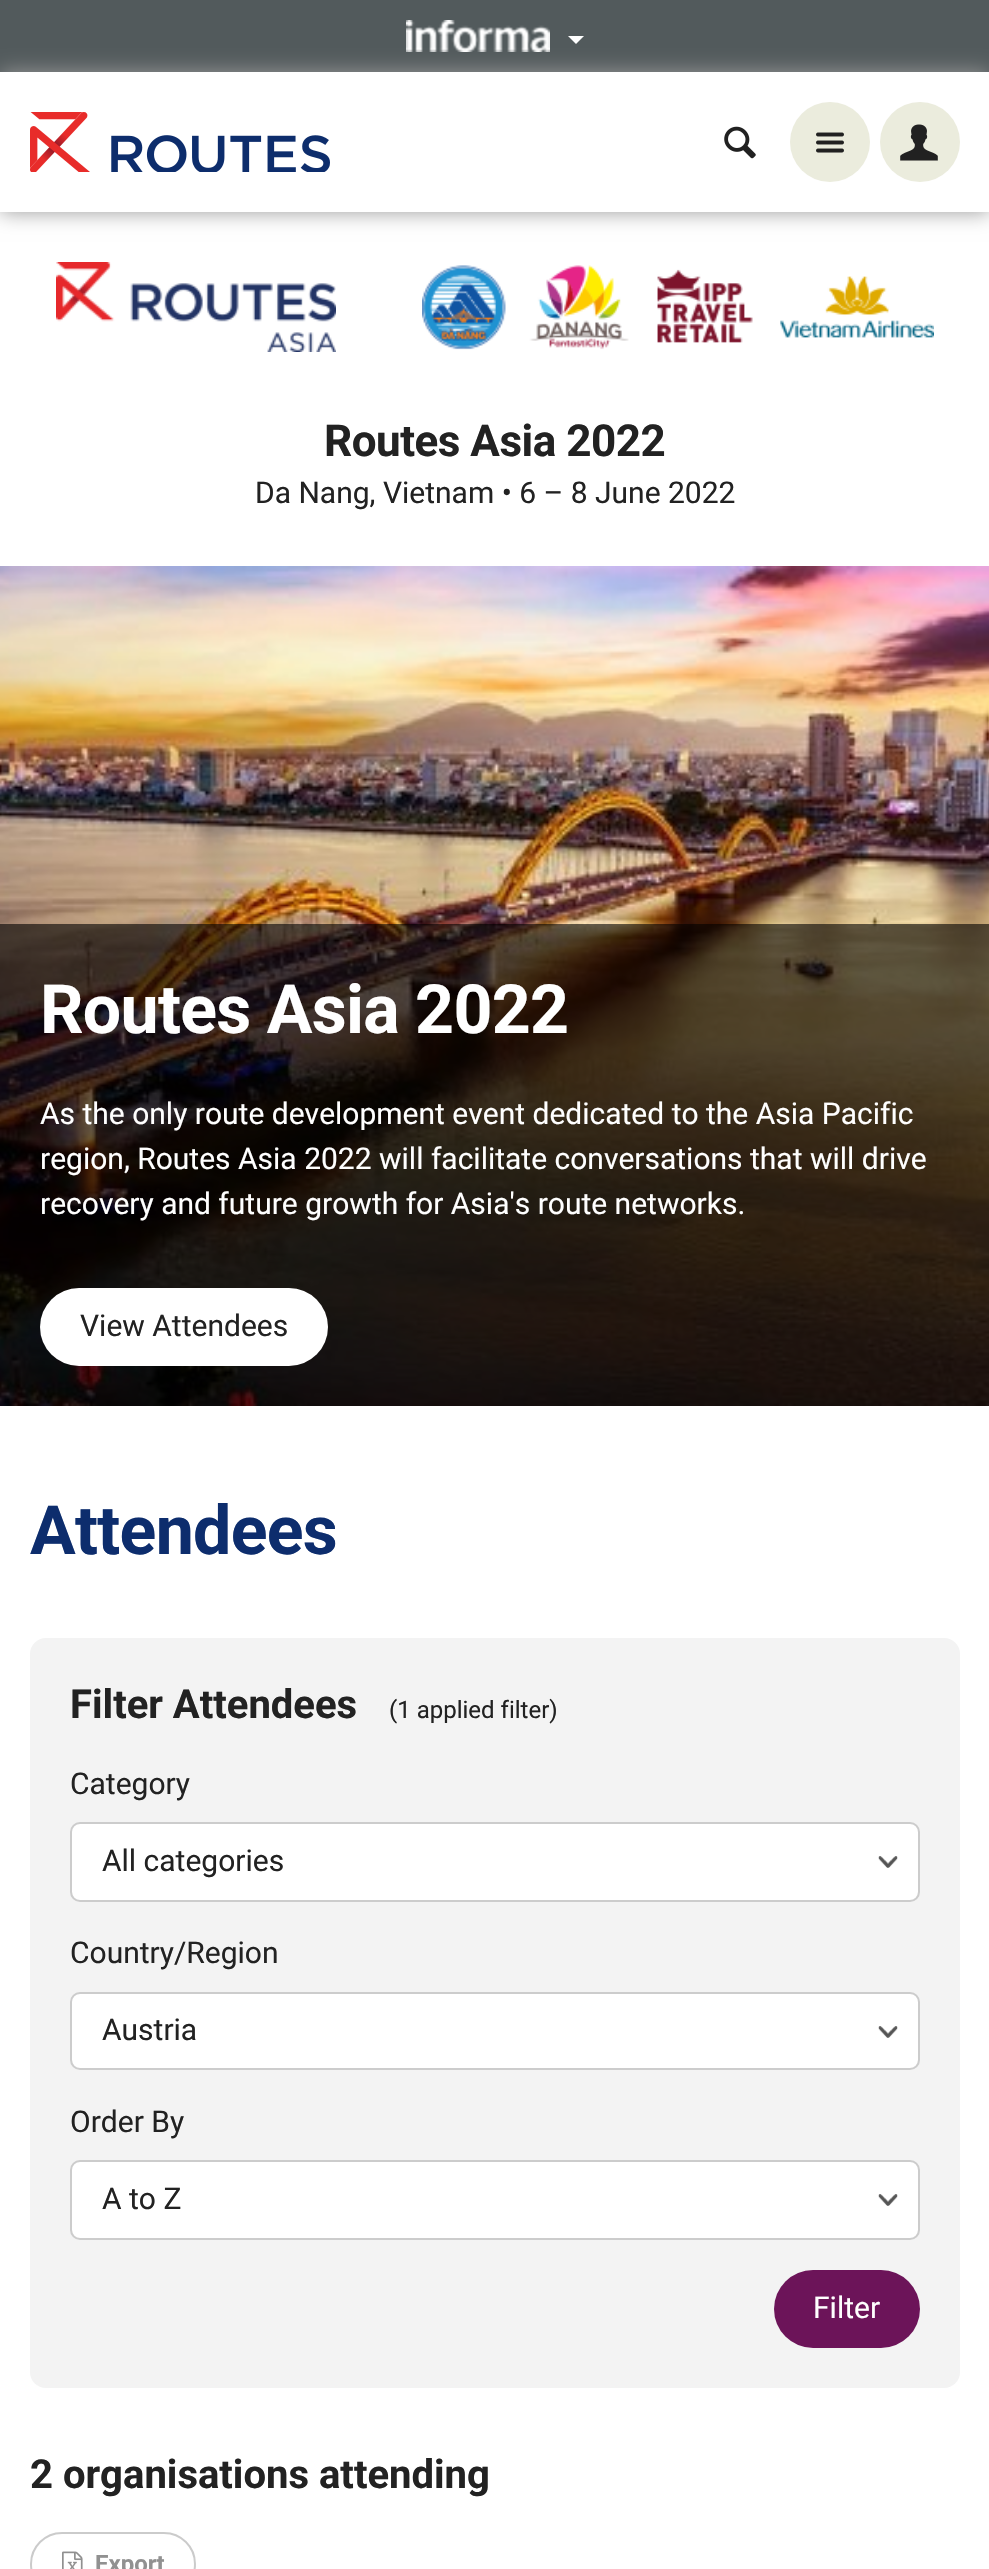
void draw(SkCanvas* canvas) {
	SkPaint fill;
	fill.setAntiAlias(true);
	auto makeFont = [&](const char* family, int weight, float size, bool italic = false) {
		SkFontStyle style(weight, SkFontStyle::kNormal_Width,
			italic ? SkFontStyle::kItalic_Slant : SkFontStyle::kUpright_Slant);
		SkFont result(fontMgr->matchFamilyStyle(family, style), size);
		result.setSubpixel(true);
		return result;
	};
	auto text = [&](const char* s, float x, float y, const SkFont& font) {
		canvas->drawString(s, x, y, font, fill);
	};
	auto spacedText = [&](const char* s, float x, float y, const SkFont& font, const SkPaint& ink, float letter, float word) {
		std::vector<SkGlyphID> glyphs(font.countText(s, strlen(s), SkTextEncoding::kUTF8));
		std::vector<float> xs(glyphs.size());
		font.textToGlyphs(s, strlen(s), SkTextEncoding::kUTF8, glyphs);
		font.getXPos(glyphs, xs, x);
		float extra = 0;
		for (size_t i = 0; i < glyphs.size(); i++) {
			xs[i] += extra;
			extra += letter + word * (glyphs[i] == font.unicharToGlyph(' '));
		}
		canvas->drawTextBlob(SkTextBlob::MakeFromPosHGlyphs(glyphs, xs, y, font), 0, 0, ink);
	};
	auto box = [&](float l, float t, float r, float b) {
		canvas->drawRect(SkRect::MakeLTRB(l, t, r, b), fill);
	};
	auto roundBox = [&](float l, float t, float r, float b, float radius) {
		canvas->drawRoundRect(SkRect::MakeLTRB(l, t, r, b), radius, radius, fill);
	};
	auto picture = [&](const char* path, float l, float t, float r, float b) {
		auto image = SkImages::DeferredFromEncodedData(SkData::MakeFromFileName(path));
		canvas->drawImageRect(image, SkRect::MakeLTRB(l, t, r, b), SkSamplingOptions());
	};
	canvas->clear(0xFFFFFFFF);
	fill.setColor(0xFF525A5C);
	box(0, 0, 989, 72);
	picture("image0.png", 406, 20, 550, 52);
	fill.setColor(0xFFFFFFFF);
	canvas->drawPath(SkPathBuilder().moveTo(568, 36).lineTo(584, 36).lineTo(576, 44).close().detach(), fill);
	canvas->save();
	canvas->clipPath(SkPathBuilder(SkPathFillType::kEvenOdd).moveTo(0, 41).lineTo(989, 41).lineTo(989, 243).lineTo(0, 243).close().moveTo(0, 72).lineTo(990, 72).lineTo(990, 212).lineTo(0, 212).close().detach(), true);
	fill.setColor(0xFF999999);
	fill.setMaskFilter(SkMaskFilter::MakeBlur(kNormal_SkBlurStyle, 10));
	canvas->drawRect(SkRect::MakeLTRB(0, 72, 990, 212), fill);
	fill.setMaskFilter(nullptr);
	canvas->restore();
	picture("image1.png", 30, 112, 330, 172);
	picture("image2.png", 724, 126, 756, 159);
	fill.setColor(0xFFEBECDD);
	canvas->drawCircle(830, 142, 40, fill);
	picture("image3.png", 816, 132, 844, 153);
	canvas->drawCircle(920, 142, 40, fill);
	picture("image4.png", 900, 124, 938, 161);
	picture("image5.png", 56, 262, 336, 352);
	picture("image6.png", 422, 265, 934, 350);
	picture("image7.png", 0, 566, 989, 1406);
	fill.setColor(0x99000000);
	box(0, 924, 989, 1406);
	fill.setColor(0xFFFFFFFF);
	roundBox(40, 1288, 328, 1366, 39);
	fill.setColor(0xFFF3F3F3);
	roundBox(30, 1638, 960, 2388, 16);
	fill.setColor(0xFFFFFFFF);
	roundBox(72, 1824, 918, 1900, 8);
	picture("image8.png", 878, 1856, 898, 1868);
	fill.setStyle(SkPaint::kStroke_Style);
	fill.setStrokeWidth(2);
	fill.setColor(0xFFCCCCCC);
	canvas->drawRoundRect(SkRect::MakeLTRB(71, 1823, 919, 1901), 9, 9, fill);
	fill.setStyle(SkPaint::kFill_Style);
	fill.setColor(0xFFFFFFFF);
	roundBox(72, 1994, 918, 2068, 8);
	picture("image9.png", 878, 2026, 898, 2038);
	fill.setStyle(SkPaint::kStroke_Style);
	fill.setColor(0xFFCCCCCC);
	canvas->drawRoundRect(SkRect::MakeLTRB(71, 1993, 919, 2069), 9, 9, fill);
	fill.setStyle(SkPaint::kFill_Style);
	fill.setColor(0xFFFFFFFF);
	roundBox(72, 2162, 918, 2238, 8);
	picture("image8.png", 878, 2194, 898, 2206);
	fill.setStyle(SkPaint::kStroke_Style);
	fill.setColor(0xFFCCCCCC);
	canvas->drawRoundRect(SkRect::MakeLTRB(71, 2161, 919, 2239), 9, 9, fill);
	fill.setStyle(SkPaint::kFill_Style);
	fill.setColor(0xFF6C1459);
	roundBox(774, 2270, 920, 2348, 39);
	fill.setStyle(SkPaint::kStroke_Style);
	fill.setColor(0xFFCBCBCB);
	canvas->drawRoundRect(SkRect::MakeLTRB(31, 2533, 195, 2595), 31, 31, fill);
	picture("image10.png", 62, 2551, 83, 2569);
	auto font1 = makeFont("Roboto", 700, 44);
	fill.setStyle(SkPaint::kFill_Style);
	fill.setColor(0xFF222222);
	spacedText("Routes Asia 2022", 324, 456, font1, fill, -0.5f, 0);
	auto font2 = makeFont("Roboto", 400, 30);
	text("Da Nang, Vietnam • 6 – 8 June 2022", 255, 503, font2);
	auto font3 = makeFont("Roboto", 700, 68);
	fill.setColor(0xFFFFFFFF);
	spacedText("Routes Asia 2022", 40, 1033, font3, fill, -0.7f, 0);
	text("As the only route development event dedicated to the Asia Pacific", 40, 1124, font2);
	text("region, Routes Asia 2022 will facilitate conversations that will drive", 40, 1169, font2);
	text("recovery and future growth for Asia's route networks.", 40, 1214, font2);
	fill.setColor(0xFF222222);
	text("View Attendees", 80, 1336, font2);
	fill.setColor(0xFF0D2D6D);
	spacedText("Attendees", 30, 1554, font3, fill, -0.7f, 0);
	auto font4 = makeFont("Roboto", 700, 40);
	fill.setColor(0xFF222222);
	text("Filter Attendees", 70, 1718, font4);
	auto font5 = makeFont("Roboto", 400, 24);
	text("(1 applied filter)", 389, 1718, font5);
	text("Category", 70, 1794, font2);
	text("All categories", 102, 1871, font2);
	text("Country/Region", 70, 1963, font2);
	text("Austria", 102, 2040, font2);
	text("Order By", 70, 2132, font2);
	text("A to Z", 102, 2209, font2);
	fill.setColor(0xFFFFFFFF);
	text("Filter", 813, 2318, font2);
	fill.setColor(0xFF222222);
	text("2 organisations attending", 30, 2488, font4);
	auto font6 = makeFont("Roboto", 700, 24);
	fill.setColor(0xFF919191);
	text("Export", 95, 2572, font6);
}
